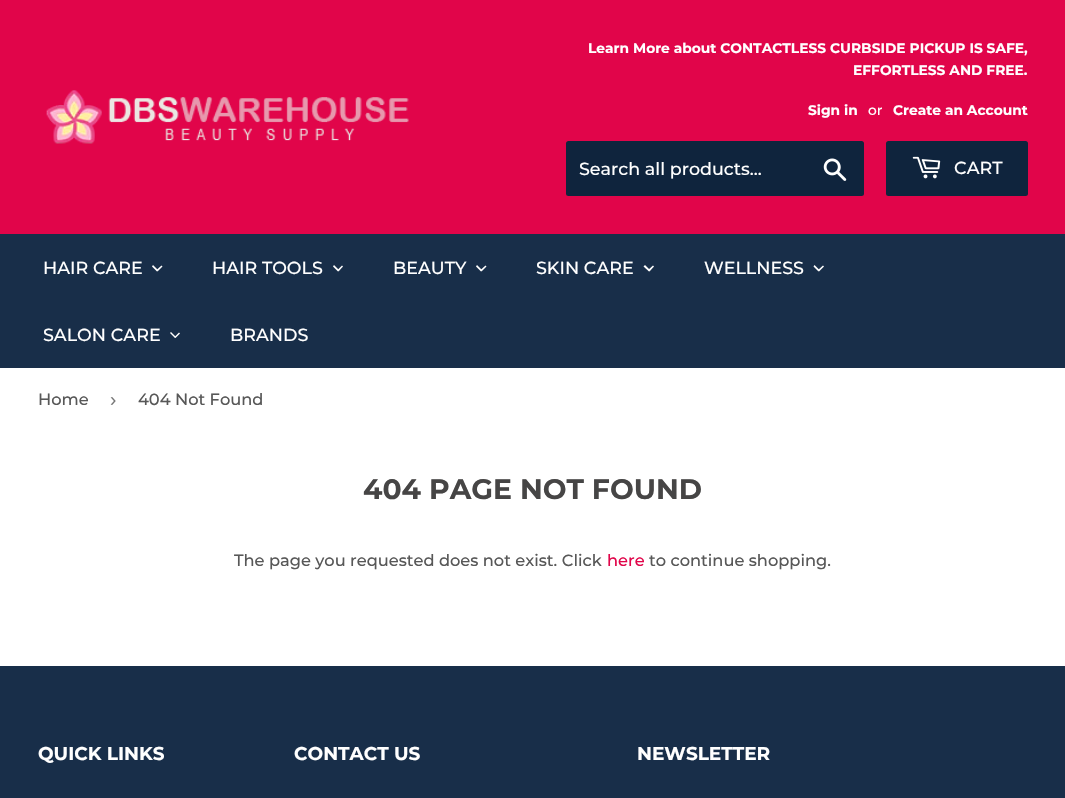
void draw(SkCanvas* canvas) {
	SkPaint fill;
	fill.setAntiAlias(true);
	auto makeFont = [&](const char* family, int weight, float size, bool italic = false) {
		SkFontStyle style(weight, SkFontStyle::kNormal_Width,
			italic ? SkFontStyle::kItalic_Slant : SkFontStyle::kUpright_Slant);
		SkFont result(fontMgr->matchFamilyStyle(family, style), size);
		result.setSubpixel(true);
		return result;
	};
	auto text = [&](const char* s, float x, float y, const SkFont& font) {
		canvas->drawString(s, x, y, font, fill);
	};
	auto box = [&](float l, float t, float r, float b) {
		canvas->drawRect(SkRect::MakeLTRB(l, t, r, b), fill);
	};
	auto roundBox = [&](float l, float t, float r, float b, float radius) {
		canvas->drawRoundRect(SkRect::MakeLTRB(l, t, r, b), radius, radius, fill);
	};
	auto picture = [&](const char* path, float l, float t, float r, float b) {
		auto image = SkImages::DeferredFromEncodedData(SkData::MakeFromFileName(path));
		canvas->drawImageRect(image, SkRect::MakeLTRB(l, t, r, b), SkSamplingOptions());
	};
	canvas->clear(0xFFFFFFFF);
	fill.setColor(0xFFE1054A);
	box(0, 0, 1065, 234);
	picture("image0.png", 46, 90, 409, 144);
	fill.setColor(0xFF0F243D);
	roundBox(566, 141, 864, 196, 2.5f);
	picture("image1.png", 823, 158, 847, 181);
	roundBox(886, 141, 1028, 196, 2.5f);
	picture("image2.png", 912, 156, 941, 179);
	fill.setColor(0xFF182E49);
	box(0, 234, 1065, 368);
	fill.setColor(0xFFFFFFFF);
	canvas->drawPath(SkPathBuilder().moveTo(161.5f, 265.5f).lineTo(162.5f, 266.5f).lineTo(157.5f, 271.5f).lineTo(156.5f, 270).close().detach(), fill);
	canvas->drawPath(SkPathBuilder().moveTo(153, 265).lineTo(158, 270).lineTo(157, 271.5f).lineTo(152, 266.5f).close().detach(), fill);
	canvas->drawPath(SkPathBuilder().moveTo(342, 265.5f).lineTo(343, 266.5f).lineTo(338.5f, 271.5f).lineTo(337.5f, 270).close().detach(), fill);
	canvas->drawPath(SkPathBuilder().moveTo(334, 265).lineTo(339, 270).lineTo(338, 271.5f).lineTo(333, 266.5f).close().detach(), fill);
	canvas->drawPath(SkPathBuilder().moveTo(485.5f, 265.5f).lineTo(486.5f, 266.5f).lineTo(481.5f, 271.5f).lineTo(480.5f, 270).close().detach(), fill);
	canvas->drawPath(SkPathBuilder().moveTo(477, 265).lineTo(482, 270).lineTo(481, 271.5f).lineTo(476, 266.5f).close().detach(), fill);
	canvas->drawPath(SkPathBuilder().moveTo(653, 265.5f).lineTo(654, 266.5f).lineTo(649.5f, 271.5f).lineTo(648, 270).close().detach(), fill);
	canvas->drawPath(SkPathBuilder().moveTo(645, 265).lineTo(650, 270).lineTo(649, 271.5f).lineTo(643.5f, 266.5f).close().detach(), fill);
	canvas->drawPath(SkPathBuilder().moveTo(823, 265.5f).lineTo(824, 266.5f).lineTo(819, 271.5f).lineTo(818, 270).close().detach(), fill);
	canvas->drawPath(SkPathBuilder().moveTo(814.5f, 265).lineTo(819.5f, 270).lineTo(818.5f, 271.5f).lineTo(813.5f, 266.5f).close().detach(), fill);
	canvas->drawPath(SkPathBuilder().moveTo(179, 332.5f).lineTo(180, 333.5f).lineTo(175.5f, 338).lineTo(174.5f, 337).close().detach(), fill);
	canvas->drawPath(SkPathBuilder().moveTo(171, 332).lineTo(176, 337).lineTo(175, 338).lineTo(170, 333).close().detach(), fill);
	fill.setColor(0xFF182E49);
	box(0, 666, 1065, 798);
	auto font1 = makeFont("Montserrat", 700, 13.8f);
	fill.setColor(0xFFFFFFFF);
	text("Learn More about CONTACTLESS CURBSIDE PICKUP IS SAFE,", 588, 53, font1);
	text("EFFORTLESS AND FREE.", 853, 75, font1);
	text("Sign in", 808, 115, font1);
	auto font2 = makeFont("Montserrat", 500, 13.8f);
	text("or", 868, 115, font2);
	text("Create an Account", 893, 115, font1);
	auto font3 = makeFont("Montserrat", 500, 17.5f);
	text("Search all products...", 579, 175, font3);
	text("CART", 954, 174, font3);
	text("HAIR CARE", 43, 274, font3);
	text("HAIR TOOLS", 212, 274, font3);
	text("BEAUTY", 393, 274, font3);
	text("SKIN CARE", 536, 274, font3);
	text("WELLNESS", 704, 274, font3);
	text("SALON CARE", 43, 341, font3);
	text("BRANDS", 230, 341, font3);
	auto font4 = makeFont("Montserrat", 500, 16.25f);
	fill.setColor(0xFF585858);
	text("Home", 38, 405, font4);
	auto font5 = makeFont("Liberation Sans", 400, 19);
	fill.setColor(0xFF767676);
	text("›", 110, 406, font5);
	fill.setColor(0xFF585858);
	text("404 Not Found", 138, 405, font4);
	auto font6 = makeFont("Montserrat", 700, 28.2f);
	fill.setColor(0xFF464545);
	text("404 PAGE NOT FOUND", 363, 499, font6);
	fill.setColor(0xFF585858);
	text("The page you requested does not exist. Click", 234, 566, font4);
	fill.setColor(0xFFE1054A);
	text("here", 607, 566, font4);
	fill.setColor(0xFF585858);
	text("to continue shopping.", 649, 566, font4);
	auto font7 = makeFont("Montserrat", 700, 18.5f);
	fill.setColor(0xFFFFFFFF);
	text("QUICK LINKS", 38, 760, font7);
	text("CONTACT US", 294, 760, font7);
	text("NEWSLETTER", 637, 760, font7);
}
